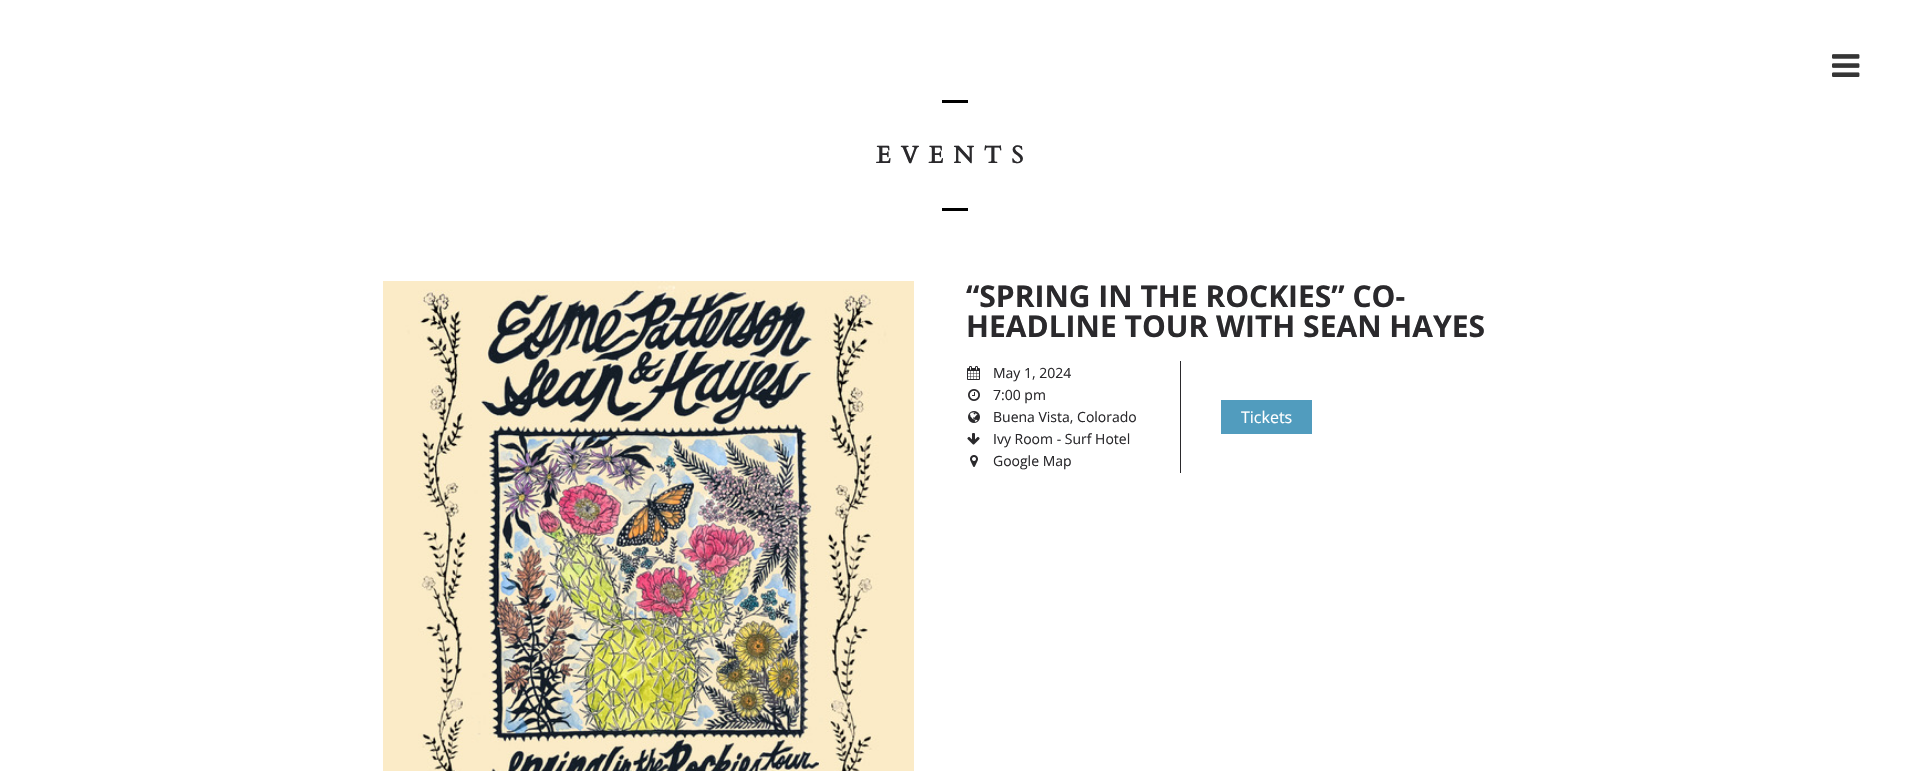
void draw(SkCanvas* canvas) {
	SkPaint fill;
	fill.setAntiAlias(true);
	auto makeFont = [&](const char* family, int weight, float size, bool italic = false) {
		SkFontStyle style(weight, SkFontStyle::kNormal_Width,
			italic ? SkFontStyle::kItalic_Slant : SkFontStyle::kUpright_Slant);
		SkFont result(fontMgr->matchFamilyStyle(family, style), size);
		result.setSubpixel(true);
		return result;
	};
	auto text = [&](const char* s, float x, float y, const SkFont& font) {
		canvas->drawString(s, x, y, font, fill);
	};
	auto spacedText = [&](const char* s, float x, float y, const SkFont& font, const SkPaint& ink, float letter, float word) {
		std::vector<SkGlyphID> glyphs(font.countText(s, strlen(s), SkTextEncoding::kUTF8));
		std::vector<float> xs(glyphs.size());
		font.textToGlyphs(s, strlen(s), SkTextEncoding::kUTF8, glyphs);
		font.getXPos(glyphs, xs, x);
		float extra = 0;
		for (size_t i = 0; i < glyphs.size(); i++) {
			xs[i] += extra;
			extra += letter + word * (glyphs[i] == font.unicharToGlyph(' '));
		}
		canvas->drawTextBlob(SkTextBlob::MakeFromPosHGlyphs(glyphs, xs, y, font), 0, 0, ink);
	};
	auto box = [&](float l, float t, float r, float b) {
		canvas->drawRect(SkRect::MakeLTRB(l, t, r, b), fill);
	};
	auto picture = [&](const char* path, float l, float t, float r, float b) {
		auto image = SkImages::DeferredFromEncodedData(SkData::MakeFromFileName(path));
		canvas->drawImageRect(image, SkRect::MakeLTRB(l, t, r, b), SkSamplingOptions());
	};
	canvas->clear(0xFFFFFFFF);
	picture("image0.png", 1832, 54, 1860, 77);
	fill.setColor(0xFF000000);
	box(942, 100, 968, 103);
	box(942, 208, 968, 211);
	picture("image1.png", 383, 281, 914, 771);
	picture("image2.png", 967, 366, 980, 380);
	picture("image3.png", 968, 389, 980, 401);
	picture("image4.png", 968, 411, 980, 423);
	picture("image5.png", 967, 433, 980, 445);
	picture("image6.png", 970, 455, 978, 467);
	fill.setColor(0xFF2A292C);
	box(1180, 361, 1181, 473);
	fill.setColor(0xFF519CBE);
	box(1221, 400, 1312, 434);
	auto font1 = makeFont("Cardo", 700, 24);
	fill.setColor(0xFF2A292C);
	spacedText("EVENTS", 876, 163, font1, fill, 10, 0);
	auto font2 = makeFont("Open Sans", 700, 30);
	text("“SPRING IN THE ROCKIES” CO-", 966, 307, font2);
	text("HEADLINE TOUR WITH SEAN HAYES", 966, 337, font2);
	auto font3 = makeFont("Open Sans", 400, 14);
	text("May 1, 2024", 993, 378, font3);
	text("7:00 pm", 993, 400, font3);
	text("Buena Vista, Colorado", 993, 422, font3);
	text("Ivy Room - Surf Hotel", 993, 444, font3);
	text("Google Map", 993, 466, font3);
	auto font4 = makeFont("Open Sans", 400, 16);
	fill.setColor(0xFFFFFFFF);
	text("Tickets", 1241, 423, font4);
}
